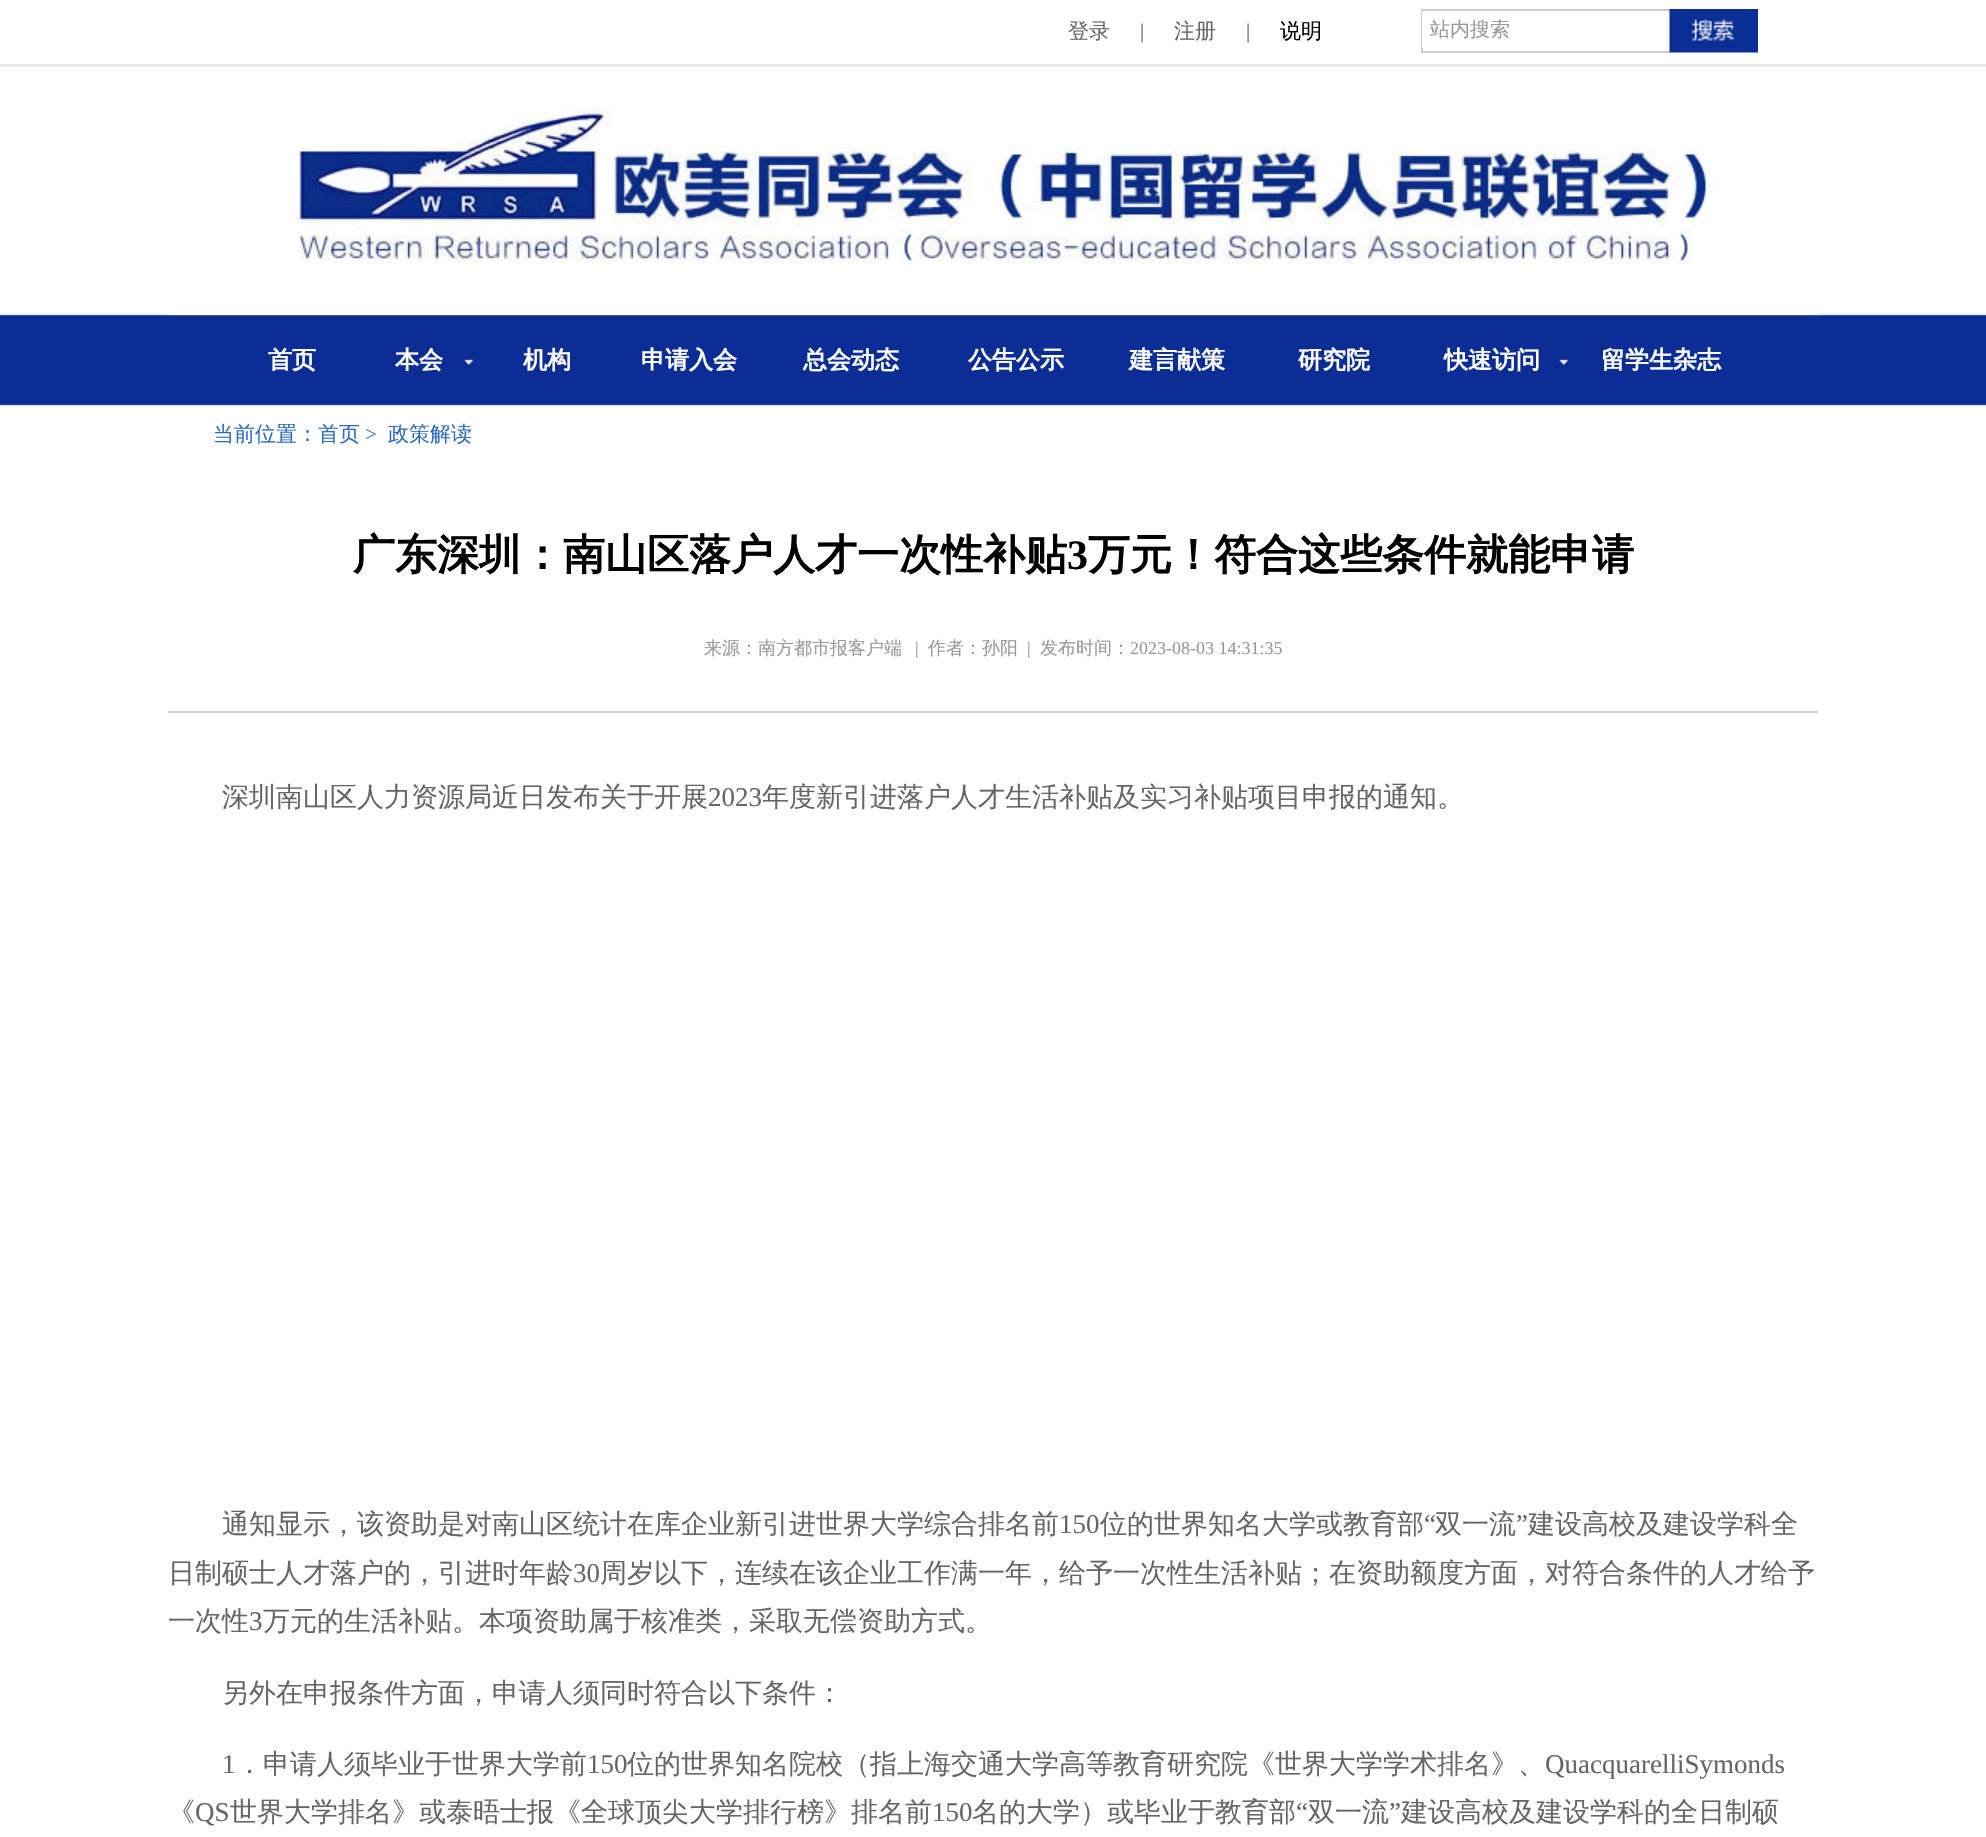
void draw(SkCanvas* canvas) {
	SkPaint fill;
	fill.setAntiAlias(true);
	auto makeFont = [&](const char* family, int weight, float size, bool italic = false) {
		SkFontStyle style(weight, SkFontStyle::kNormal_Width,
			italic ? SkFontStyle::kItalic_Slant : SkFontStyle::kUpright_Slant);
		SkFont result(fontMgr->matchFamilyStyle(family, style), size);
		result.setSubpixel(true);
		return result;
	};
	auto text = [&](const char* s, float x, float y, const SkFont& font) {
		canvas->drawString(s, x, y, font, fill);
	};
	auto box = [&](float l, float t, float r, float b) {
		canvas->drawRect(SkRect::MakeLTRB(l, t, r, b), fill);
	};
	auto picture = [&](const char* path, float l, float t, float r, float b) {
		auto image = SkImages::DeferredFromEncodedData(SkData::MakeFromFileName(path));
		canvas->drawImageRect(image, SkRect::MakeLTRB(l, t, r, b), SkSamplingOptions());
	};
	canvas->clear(0xFFFFFFFF);
	picture("image0.png", 0, 64, 1986, 407);
	picture("image1.png", 168, 108, 1818, 315);
	fill.setColor(0xFFCCCCCC);
	box(1421, 9, 1670, 11);
	box(1421, 51, 1670, 53);
	box(1421, 9, 1423, 53);
	fill.setColor(0xFFFFFFFF);
	box(1422, 11, 1423, 48);
	picture("image2.png", 1669, 9, 1758, 53);
	picture("image3.png", 464, 359, 473, 365);
	picture("image3.png", 1559, 359, 1568, 365);
	fill.setColor(0xFFD2D2D2);
	box(168, 711, 1818, 713);
	auto font1 = makeFont("WenQuanYi Zen Hei", 500, 21);
	fill.setColor(0xFF666666);
	text("登录", 1068, 38, font1);
	auto font2 = makeFont("Liberation Serif", 400, 21);
	text("|", 1140, 38, font2);
	text("注册", 1174, 38, font1);
	text("|", 1246, 38, font2);
	fill.setColor(0xFF000000);
	text("说明", 1280, 38, font1);
	canvas->save();
	canvas->clipRect(SkRect::MakeLTRB(1430, 11, 1662, 48));
	auto font3 = makeFont("WenQuanYi Zen Hei", 500, 20);
	fill.setColor(0xFF999999);
	text("站内搜索", 1430, 36, font3);
	canvas->restore();
	auto font4 = makeFont("WenQuanYi Zen Hei", 700, 24);
	fill.setColor(0xFFFFFFFF);
	text("首页", 268, 368, font4);
	text("本会", 395, 368, font4);
	text("机构", 523, 368, font4);
	text("申请入会", 641, 368, font4);
	text("总会动态", 803, 368, font4);
	text("公告公示", 968, 368, font4);
	text("建言献策", 1129, 368, font4);
	text("研究院", 1298, 368, font4);
	text("快速访问", 1444, 368, font4);
	text("留学生杂志", 1601, 368, font4);
	fill.setColor(0xFF2E6AC1);
	text("当前位置：首页", 213, 441, font1);
	text(">", 365, 441, font2);
	text("政策解读", 388, 441, font1);
	auto font5 = makeFont("WenQuanYi Zen Hei", 700, 42);
	fill.setColor(0xFF000000);
	text("广东深圳：南山区落户人才一次性补贴", 353, 569, font5);
	auto font6 = makeFont("Liberation Serif", 700, 42);
	text("3", 1067, 569, font6);
	text("万元！符合这些条件就能申请", 1088, 569, font5);
	auto font7 = makeFont("WenQuanYi Zen Hei", 500, 18);
	fill.setColor(0xFF999999);
	text("来源：南方都市报客户端", 704, 654, font7);
	auto font8 = makeFont("Liberation Serif", 400, 18);
	text("|", 915, 654, font8);
	text("作者：孙阳", 928, 654, font7);
	text("|", 1027, 654, font8);
	text("发布时间：", 1040, 654, font7);
	text("2023-08-03 14:31:35", 1130, 654, font8);
	auto font9 = makeFont("WenQuanYi Zen Hei", 500, 27);
	fill.setColor(0xFF666666);
	text("深圳南山区人力资源局近日发布关于开展", 222, 806, font9);
	auto font10 = makeFont("Liberation Serif", 400, 27);
	text("2023", 708, 806, font10);
	text("年度新引进落户人才生活补贴及实习补贴项目申报的通知。", 762, 806, font9);
	text("通知显示，该资助是对南山区统计在库企业新引进世界大学综合排名前", 222, 1533, font9);
	text("150", 1059, 1533, font10);
	text("位的世界知名大学或教育部", 1100, 1533, font9);
	text("“", 1424, 1533, font10);
	text("双一流", 1435, 1533, font9);
	text("”", 1516, 1533, font10);
	text("建设高校及建设学科全", 1528, 1533, font9);
	text("日制硕士人才落户的，引进时年龄", 168, 1582, font9);
	text("30", 573, 1582, font10);
	text("周岁以下，连续在该企业工作满一年，给予一次性生活补贴；在资助额度方面，对符合条件的人才给予", 600, 1582, font9);
	text("一次性", 168, 1630, font9);
	text("3", 249, 1630, font10);
	text("万元的生活补贴。本项资助属于核准类，采取无偿资助方式。", 263, 1630, font9);
	text("另外在申报条件方面，申请人须同时符合以下条件：", 222, 1702, font9);
	text("1", 222, 1773, font10);
	text("．申请人须毕业于世界大学前", 236, 1773, font9);
	text("150", 587, 1773, font10);
	text("位的世界知名院校（指上海交通大学高等教育研究院《世界大学学术排名》、", 627, 1773, font9);
	text("QuacquarelliSymonds", 1545, 1773, font10);
	text("《", 168, 1821, font9);
	text("QS", 195, 1821, font10);
	text("世界大学排名》或泰晤士报《全球顶尖大学排行榜》排名前", 230, 1821, font9);
	text("150", 932, 1821, font10);
	text("名的大学）或毕业于教育部", 972, 1821, font9);
	text("“", 1296, 1821, font10);
	text("双一流", 1308, 1821, font9);
	text("”", 1389, 1821, font10);
	text("建设高校及建设学科的全日制硕", 1401, 1821, font9);
}
